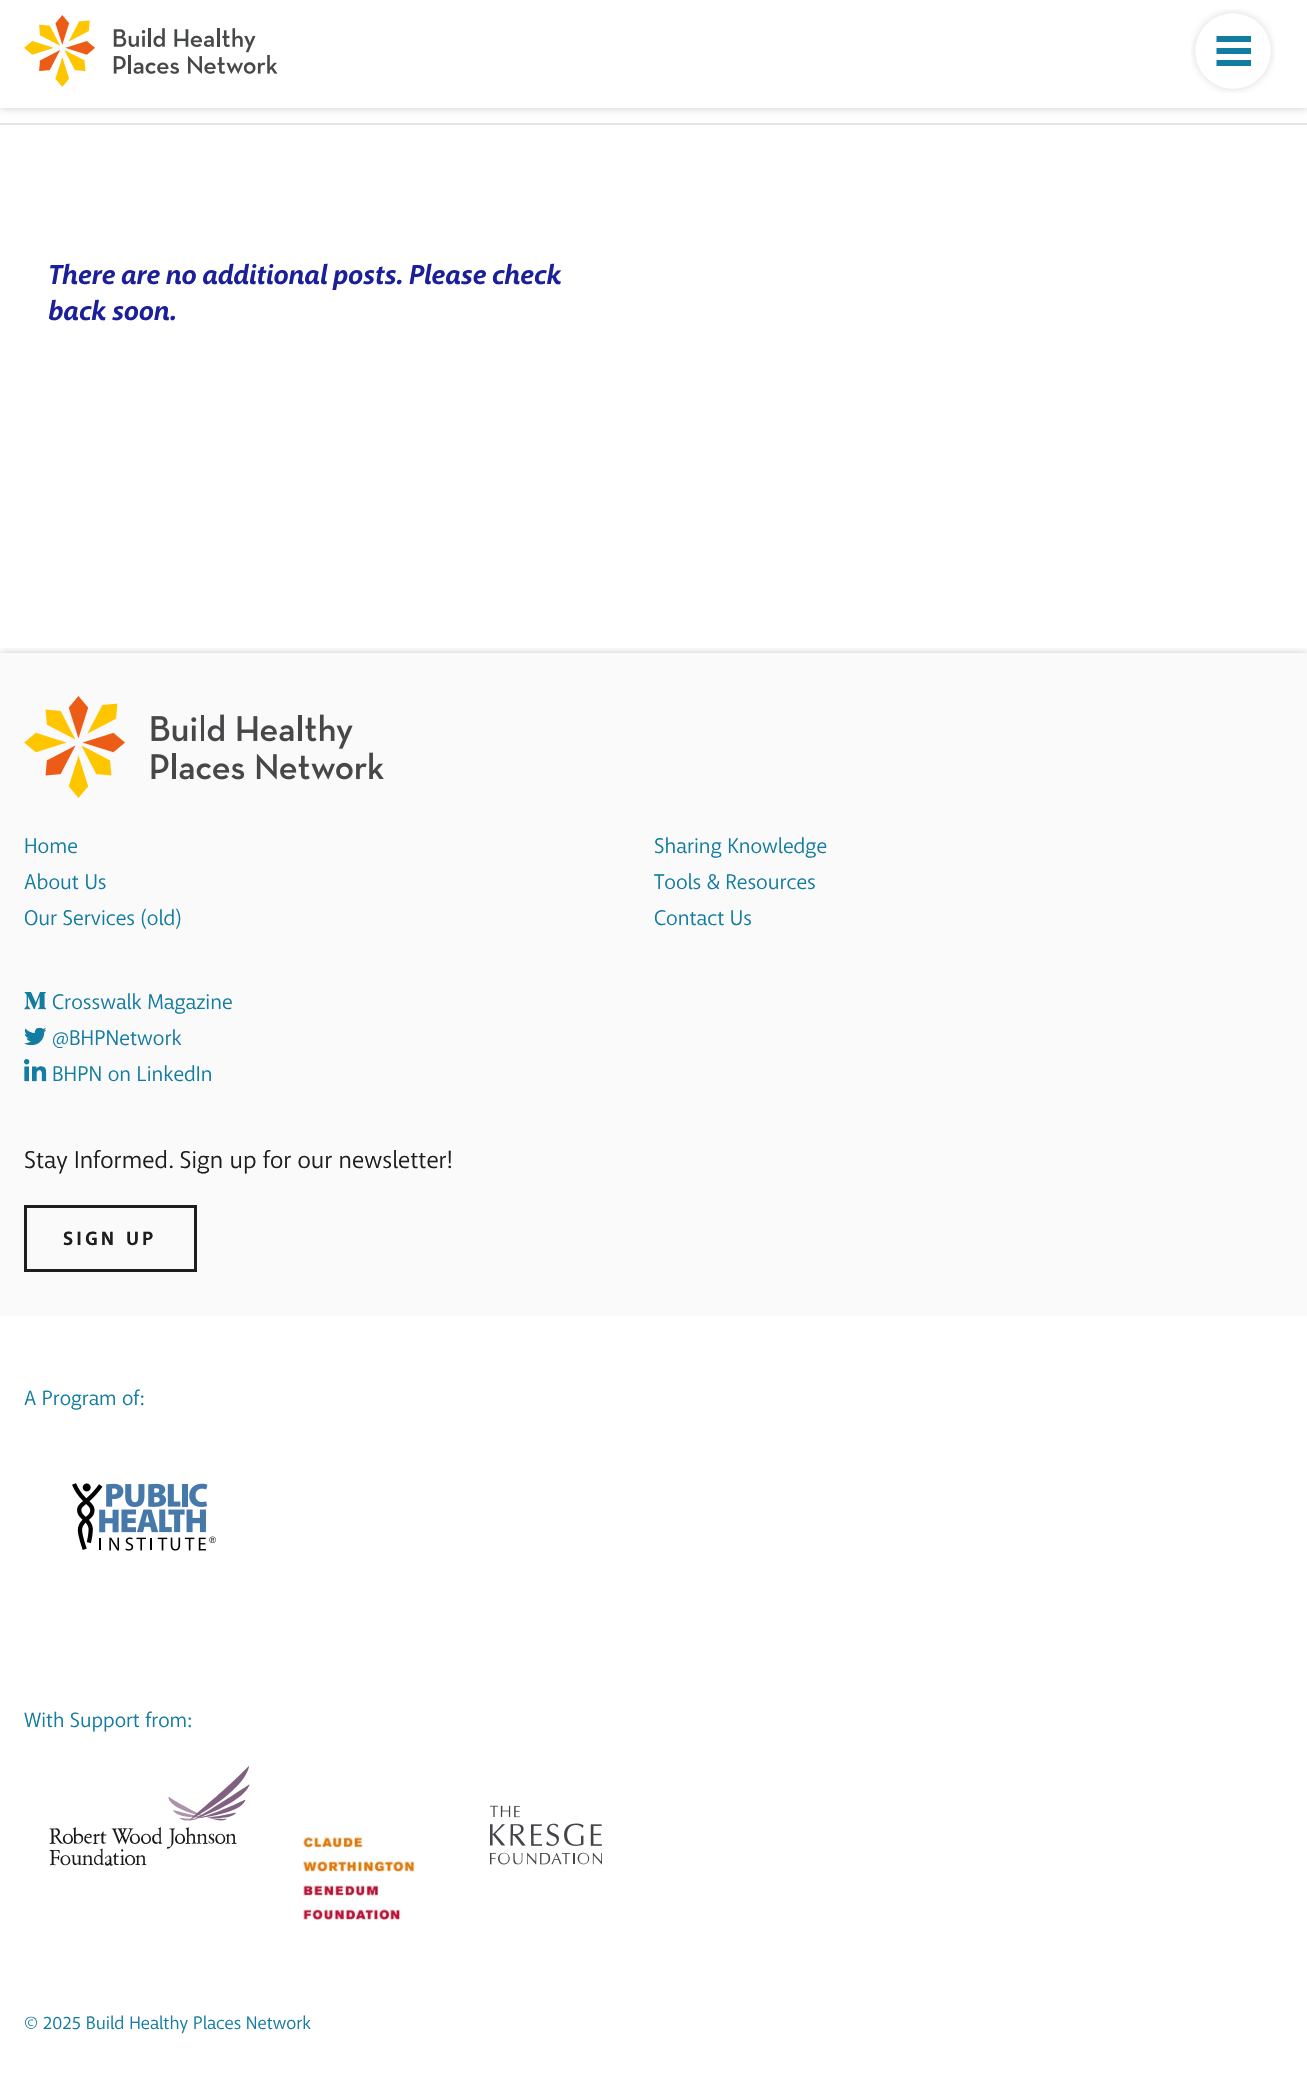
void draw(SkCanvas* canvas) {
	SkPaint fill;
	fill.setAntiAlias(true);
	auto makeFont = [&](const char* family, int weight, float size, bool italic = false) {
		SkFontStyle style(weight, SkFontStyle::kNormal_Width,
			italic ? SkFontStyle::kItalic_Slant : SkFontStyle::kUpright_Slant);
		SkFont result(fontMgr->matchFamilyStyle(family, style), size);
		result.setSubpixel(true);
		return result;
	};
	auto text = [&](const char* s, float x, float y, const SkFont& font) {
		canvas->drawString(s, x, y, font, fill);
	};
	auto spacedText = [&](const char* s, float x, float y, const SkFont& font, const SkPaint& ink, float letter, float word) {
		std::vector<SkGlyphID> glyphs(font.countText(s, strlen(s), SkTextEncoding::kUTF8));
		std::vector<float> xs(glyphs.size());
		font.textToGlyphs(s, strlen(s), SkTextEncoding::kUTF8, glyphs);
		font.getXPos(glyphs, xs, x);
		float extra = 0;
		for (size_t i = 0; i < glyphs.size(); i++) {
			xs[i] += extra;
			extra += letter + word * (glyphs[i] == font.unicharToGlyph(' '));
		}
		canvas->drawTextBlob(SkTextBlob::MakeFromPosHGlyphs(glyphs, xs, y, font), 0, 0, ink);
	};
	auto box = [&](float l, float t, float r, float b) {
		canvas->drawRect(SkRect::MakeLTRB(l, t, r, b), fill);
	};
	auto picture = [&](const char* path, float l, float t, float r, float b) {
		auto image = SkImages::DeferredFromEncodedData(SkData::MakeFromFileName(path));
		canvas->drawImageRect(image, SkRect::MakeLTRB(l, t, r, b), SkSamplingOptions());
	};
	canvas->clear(0xFFFFFFFF);
	fill.setColor(0x33000000);
	fill.setMaskFilter(SkMaskFilter::MakeBlur(kNormal_SkBlurStyle, 4));
	canvas->drawRect(SkRect::MakeLTRB(0, 0, 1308, 108), fill);
	fill.setMaskFilter(nullptr);
	fill.setColor(0xFFFFFFFF);
	box(0, 0, 1307, 108);
	picture("image0.png", 24, 15, 278, 87);
	picture("image1.png", 1191, 9, 1275, 93);
	fill.setColor(0xFFE5E5E5);
	box(0, 123, 1307, 125);
	canvas->save();
	canvas->clipRect(SkRect::MakeLTRB(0, 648, 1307, 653));
	fill.setColor(0x33000000);
	fill.setMaskFilter(SkMaskFilter::MakeBlur(kNormal_SkBlurStyle, 4));
	canvas->drawRect(SkRect::MakeLTRB(0, 653, 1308, 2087), fill);
	fill.setMaskFilter(nullptr);
	canvas->restore();
	fill.setColor(0xFFFAFAFA);
	box(0, 653, 1307, 1316);
	picture("image2.png", 24, 696, 384, 798);
	picture("image3.png", 24, 992, 47, 1010);
	picture("image4.png", 24, 1028, 46, 1046);
	picture("image5.png", 24, 1059, 47, 1082);
	fill.setStyle(SkPaint::kStroke_Style);
	fill.setStrokeWidth(3);
	fill.setColor(0xFF1E1E1E);
	canvas->drawRect(SkRect::MakeLTRB(25.5f, 1206.5f, 195.5f, 1270.5f), fill);
	picture("image6.png", 72, 1483, 216, 1551);
	picture("image7.png", 49, 1766, 250, 1866);
	picture("image8.png", 302, 1836, 415, 1921);
	picture("image9.png", 490, 1805, 602, 1865);
	auto font1 = makeFont("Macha", 700, 27, true);
	fill.setStyle(SkPaint::kFill_Style);
	fill.setColor(0xFF1B1F99);
	text("There are no additional posts. Please check", 48, 284, font1);
	text("back soon.", 48, 320, font1);
	auto font2 = makeFont("Macha", 400, 21);
	fill.setColor(0xFF137CA1);
	text("Home", 24, 853, font2);
	text("About Us", 24, 889, font2);
	text("Our Services (old)", 24, 925, font2);
	text("Sharing Knowledge", 654, 853, font2);
	text("Tools & Resources", 654, 889, font2);
	text("Contact Us", 654, 925, font2);
	text("Crosswalk Magazine", 52, 1009, font2);
	text("@BHPNetwork", 52, 1045, font2);
	text("BHPN on LinkedIn", 52, 1081, font2);
	auto font3 = makeFont("Macha", 400, 24);
	fill.setColor(0xFF1E1E1E);
	text("Stay Informed. Sign up for our newsletter!", 24, 1168, font3);
	auto font4 = makeFont("Macha", 700, 19);
	spacedText("SIGN UP", 63, 1245, font4, fill, 3.5f, 0);
	auto font5 = makeFont("Macha", 400, 20.5f);
	fill.setColor(0xFF137CA1);
	text("A Program of:", 24, 1405, font5);
	text("With Support from:", 24, 1727, font5);
	auto font6 = makeFont("Macha", 400, 18);
	text("© 2025 Build Healthy Places Network", 24, 2029, font6);
}
